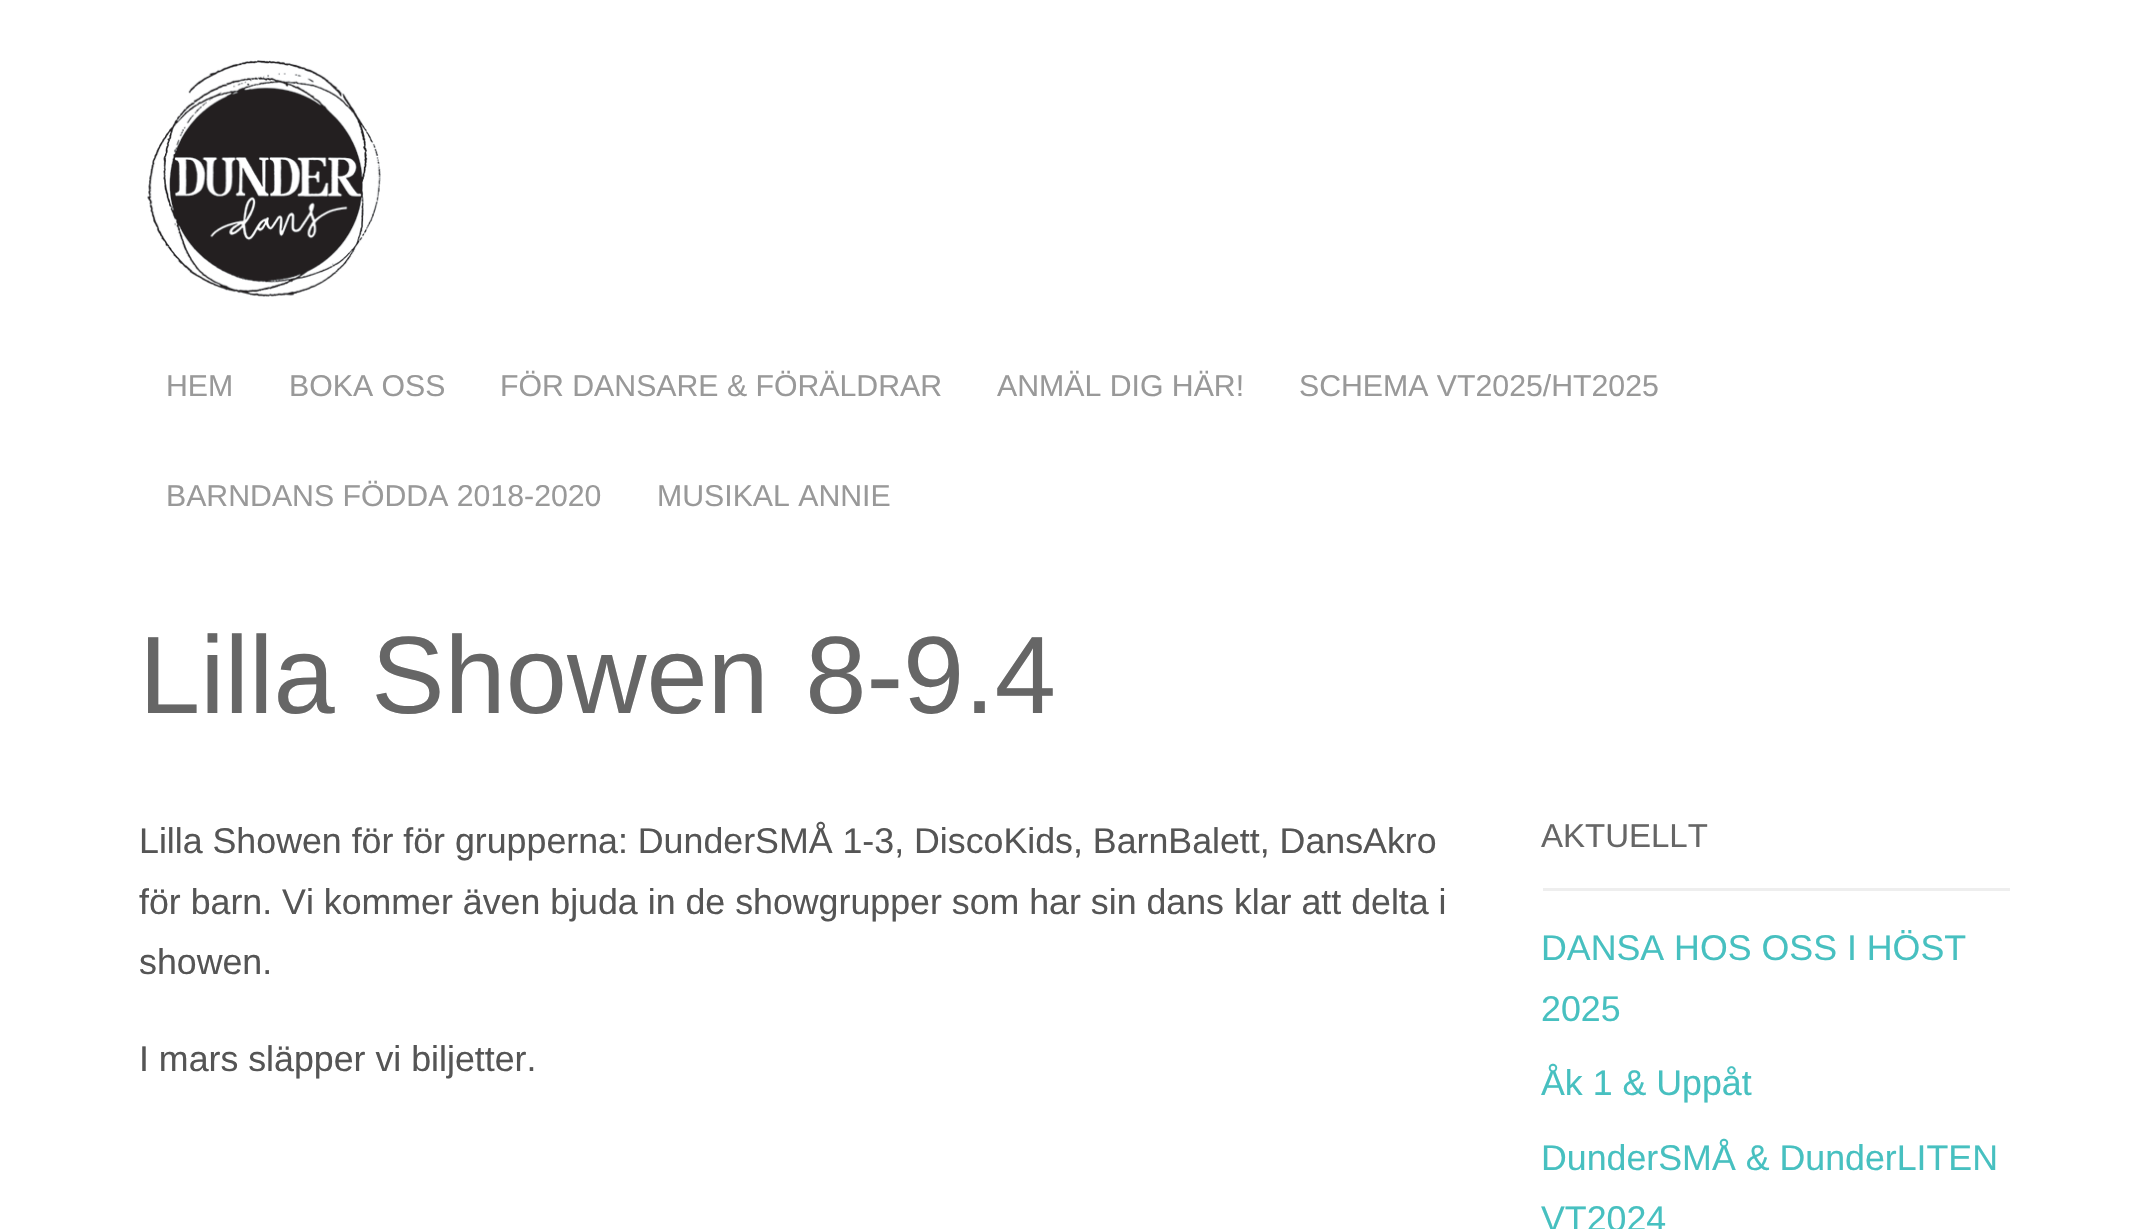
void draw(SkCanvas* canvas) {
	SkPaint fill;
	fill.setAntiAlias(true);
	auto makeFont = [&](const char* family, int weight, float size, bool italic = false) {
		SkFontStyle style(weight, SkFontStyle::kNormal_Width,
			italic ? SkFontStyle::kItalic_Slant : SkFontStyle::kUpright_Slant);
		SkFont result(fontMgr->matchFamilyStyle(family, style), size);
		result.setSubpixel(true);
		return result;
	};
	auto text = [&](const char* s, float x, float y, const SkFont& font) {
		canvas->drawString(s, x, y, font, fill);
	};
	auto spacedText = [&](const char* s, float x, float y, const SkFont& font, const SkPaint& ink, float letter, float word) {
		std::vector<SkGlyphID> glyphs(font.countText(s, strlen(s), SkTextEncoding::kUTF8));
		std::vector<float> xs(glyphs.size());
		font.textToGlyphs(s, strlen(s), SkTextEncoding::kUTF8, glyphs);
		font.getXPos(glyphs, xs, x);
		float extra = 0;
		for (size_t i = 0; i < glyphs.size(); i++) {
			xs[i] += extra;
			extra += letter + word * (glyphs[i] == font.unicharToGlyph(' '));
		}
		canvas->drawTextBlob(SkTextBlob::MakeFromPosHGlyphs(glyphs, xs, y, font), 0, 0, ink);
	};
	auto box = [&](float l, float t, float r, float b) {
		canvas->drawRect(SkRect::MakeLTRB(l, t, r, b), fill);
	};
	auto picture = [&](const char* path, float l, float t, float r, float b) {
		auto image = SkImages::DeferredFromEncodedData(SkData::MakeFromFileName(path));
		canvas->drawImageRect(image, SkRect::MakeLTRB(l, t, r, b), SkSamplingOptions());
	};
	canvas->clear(0xFFFFFFFF);
	picture("image0.png", 147, 60, 381, 297);
	fill.setColor(0xFFEEEEEE);
	box(1543, 888, 2010, 891);
	auto font1 = makeFont("Liberation Sans", 400, 30.25f);
	fill.setColor(0xFF999999);
	text("HEM", 166, 396, font1);
	text("BOKA OSS", 289, 396, font1);
	text("FÖR DANSARE & FÖRÄLDRAR", 500, 396, font1);
	text("ANMÄL DIG HÄR!", 997, 396, font1);
	text("SCHEMA VT2025/HT2025", 1299, 396, font1);
	text("BARNDANS FÖDDA 2018-2020", 166, 506, font1);
	text("MUSIKAL ANNIE", 657, 506, font1);
	auto font2 = makeFont("Liberation Sans", 400, 110);
	fill.setColor(0xFF666666);
	spacedText("Lilla Showen 8-9.4", 139, 713, font2, fill, 0, 6);
	auto font3 = makeFont("Liberation Sans", 400, 35.75f);
	fill.setColor(0xFF555555);
	text("Lilla Showen för för grupperna: DunderSMÅ 1-3, DiscoKids, BarnBalett, DansAkro", 139, 853, font3);
	text("för barn. Vi kommer även bjuda in de showgrupper som har sin dans klar att delta i", 139, 914, font3);
	text("showen.", 139, 974, font3);
	text("I mars släpper vi biljetter.", 139, 1071, font3);
	auto font4 = makeFont("Liberation Sans", 400, 33);
	fill.setColor(0xFF666666);
	text("AKTUELLT", 1541, 847, font4);
	fill.setColor(0xFF47C0C0);
	text("DANSA HOS OSS I HÖST", 1541, 960, font3);
	text("2025", 1541, 1021, font3);
	text("Åk 1 & Uppåt", 1541, 1095, font3);
	text("DunderSMÅ & DunderLITEN", 1541, 1170, font3);
	text("VT2024", 1541, 1231, font3);
}
